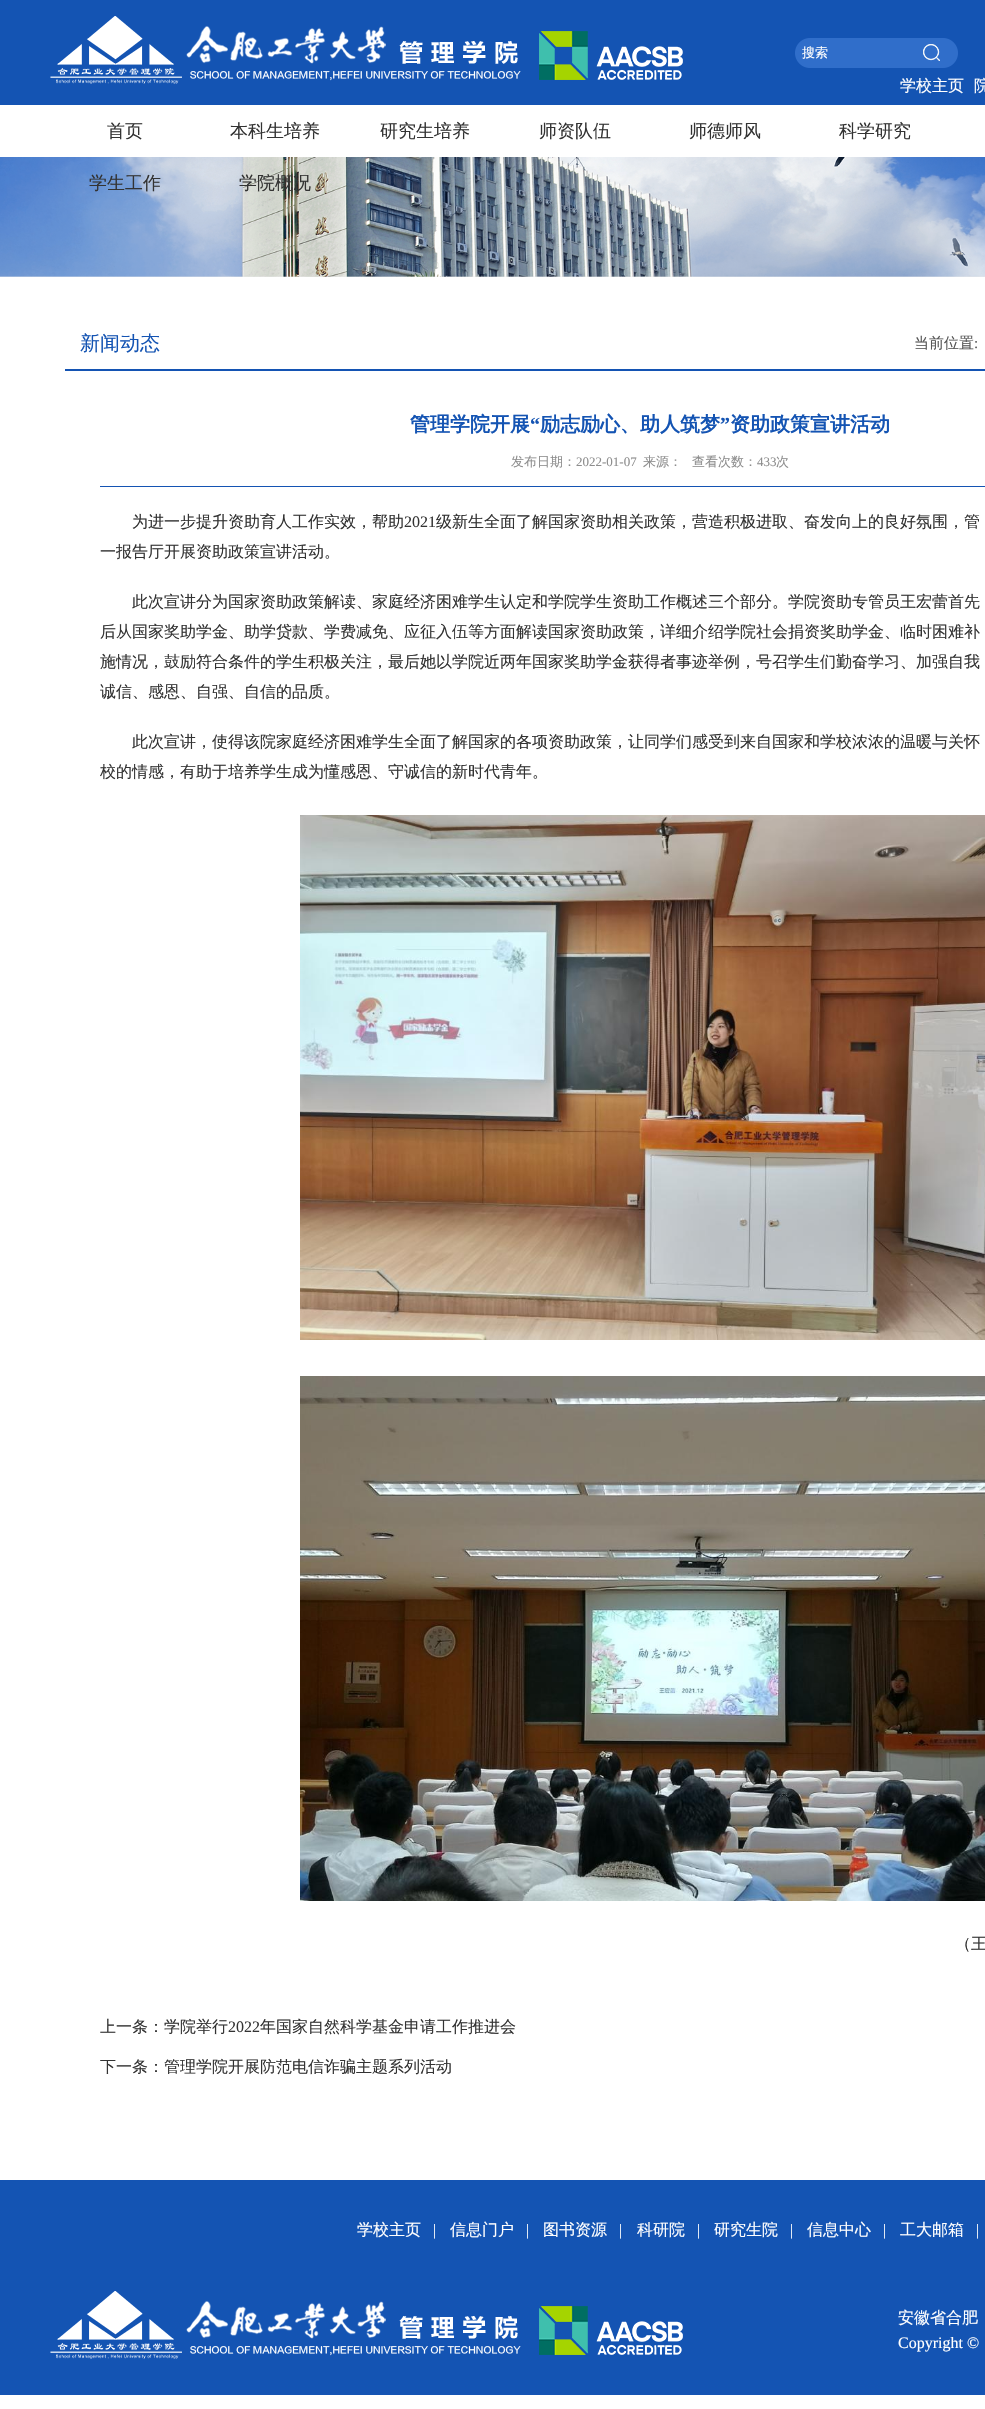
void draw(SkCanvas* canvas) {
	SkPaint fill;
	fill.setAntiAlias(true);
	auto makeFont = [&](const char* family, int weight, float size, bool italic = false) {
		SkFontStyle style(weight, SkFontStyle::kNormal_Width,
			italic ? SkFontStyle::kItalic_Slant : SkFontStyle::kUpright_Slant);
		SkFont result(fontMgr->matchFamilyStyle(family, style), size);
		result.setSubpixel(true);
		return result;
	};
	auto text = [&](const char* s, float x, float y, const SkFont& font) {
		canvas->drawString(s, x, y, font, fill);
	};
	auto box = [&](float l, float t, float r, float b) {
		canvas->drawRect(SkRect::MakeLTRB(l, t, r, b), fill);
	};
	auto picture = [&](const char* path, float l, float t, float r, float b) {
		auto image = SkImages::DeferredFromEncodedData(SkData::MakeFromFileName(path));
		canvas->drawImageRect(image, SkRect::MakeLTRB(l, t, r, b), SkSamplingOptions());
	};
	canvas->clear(0xFFFFFFFF);
	fill.setColor(0xFF1454B3);
	box(0, 0, 985, 105);
	picture("image0.png", 50, 16, 683, 84);
	picture("image1.png", 795, 38, 916, 68);
	picture("image2.png", 916, 38, 958, 68);
	picture("image3.png", 0, 157, 985, 277);
	box(65, 369, 985, 371);
	box(100, 486, 985, 487);
	picture("image4.png", 300, 815, 985, 1340);
	picture("image5.png", 300, 1376, 985, 1901);
	box(0, 2180, 985, 2395);
	picture("image0.png", 50, 2291, 683, 2359);
	auto font1 = makeFont("WenQuanYi Zen Hei", 500, 13);
	fill.setColor(0xFFFFFFFF);
	text("搜索", 802, 57, font1);
	auto font2 = makeFont("WenQuanYi Zen Hei", 500, 16);
	text("学校主页", 900, 91, font2);
	text("院", 974, 91, font2);
	auto font3 = makeFont("WenQuanYi Zen Hei", 500, 18);
	fill.setColor(0xFF333333);
	text("首页", 107, 137, font3);
	text("本科生培养", 230, 137, font3);
	text("研究生培养", 380, 137, font3);
	text("师资队伍", 539, 137, font3);
	text("师德师风", 689, 137, font3);
	text("科学研究", 839, 137, font3);
	text("学生工作", 89, 189, font3);
	text("学院概况", 239, 189, font3);
	auto font4 = makeFont("WenQuanYi Zen Hei", 500, 20);
	fill.setColor(0xFF1454B3);
	text("新闻动态", 80, 350, font4);
	auto font5 = makeFont("WenQuanYi Zen Hei", 500, 15);
	fill.setColor(0xFF555555);
	text("当前位置", 914, 348, font5);
	auto font6 = makeFont("Liberation Serif", 400, 15);
	text(":", 974, 348, font6);
	auto font7 = makeFont("WenQuanYi Zen Hei", 700, 20);
	fill.setColor(0xFF1454B3);
	text("管理学院开展", 410, 431, font7);
	auto font8 = makeFont("Liberation Serif", 700, 20);
	text("“", 530, 431, font8);
	text("励志励心、助人筑梦", 540, 431, font7);
	text("”", 720, 431, font8);
	text("资助政策宣讲活动", 730, 431, font7);
	fill.setColor(0xFF8D8D8D);
	text("发布日期：", 511, 466, font1);
	auto font9 = makeFont("Liberation Serif", 400, 13);
	text("2022-01-07", 576, 466, font9);
	text("来源：", 643, 466, font1);
	text("查看次数：", 692, 466, font1);
	text("433", 757, 466, font9);
	text("次", 776, 466, font1);
	fill.setColor(0xFF333333);
	text("为进一步提升资助育人工作实效，帮助", 132, 527, font2);
	auto font10 = makeFont("Liberation Serif", 400, 16);
	text("2021", 404, 527, font10);
	text("级新生全面了解国家资助相关政策，营造积极进取、奋发向上的良好氛围，管", 436, 527, font2);
	text("一报告厅开展资助政策宣讲活动。", 100, 557, font2);
	text("此次宣讲分为国家资助政策解读、家庭经济困难学生认定和学院学生资助工作概述三个部分。学院资助专管员王宏蕾首先", 132, 607, font2);
	text("后从国家奖助学金、助学贷款、学费减免、应征入伍等方面解读国家资助政策，详细介绍学院社会捐资奖助学金、临时困难补", 100, 637, font2);
	text("施情况，鼓励符合条件的学生积极关注，最后她以学院近两年国家奖助学金获得者事迹举例，号召学生们勤奋学习、加强自我", 100, 667, font2);
	text("诚信、感恩、自强、自信的品质。", 100, 697, font2);
	text("此次宣讲，使得该院家庭经济困难学生全面了解国家的各项资助政策，让同学们感受到来自国家和学校浓浓的温暖与关怀", 132, 747, font2);
	text("校的情感，有助于培养学生成为懂感恩、守诚信的新时代青年。", 100, 777, font2);
	text("（王", 955, 1949, font2);
	text("上一条：学院举行", 100, 2032, font2);
	text("2022", 228, 2032, font10);
	text("年国家自然科学基金申请工作推进会", 260, 2032, font2);
	text("下一条：管理学院开展防范电信诈骗主题系列活动", 100, 2072, font2);
	fill.setColor(0xFFFFFFFF);
	text("学校主页", 357, 2235, font2);
	text("|", 433, 2235, font10);
	text("信息门户", 450, 2235, font2);
	text("|", 526, 2235, font10);
	text("图书资源", 543, 2235, font2);
	text("|", 619, 2235, font10);
	text("科研院", 637, 2235, font2);
	text("|", 697, 2235, font10);
	text("研究生院", 714, 2235, font2);
	text("|", 790, 2235, font10);
	text("信息中心", 807, 2235, font2);
	text("|", 883, 2235, font10);
	text("工大邮箱", 900, 2235, font2);
	text("|", 976, 2235, font10);
	text("安徽省合肥", 898, 2323, font2);
	text("Copyright ©", 898, 2348, font10);
}
